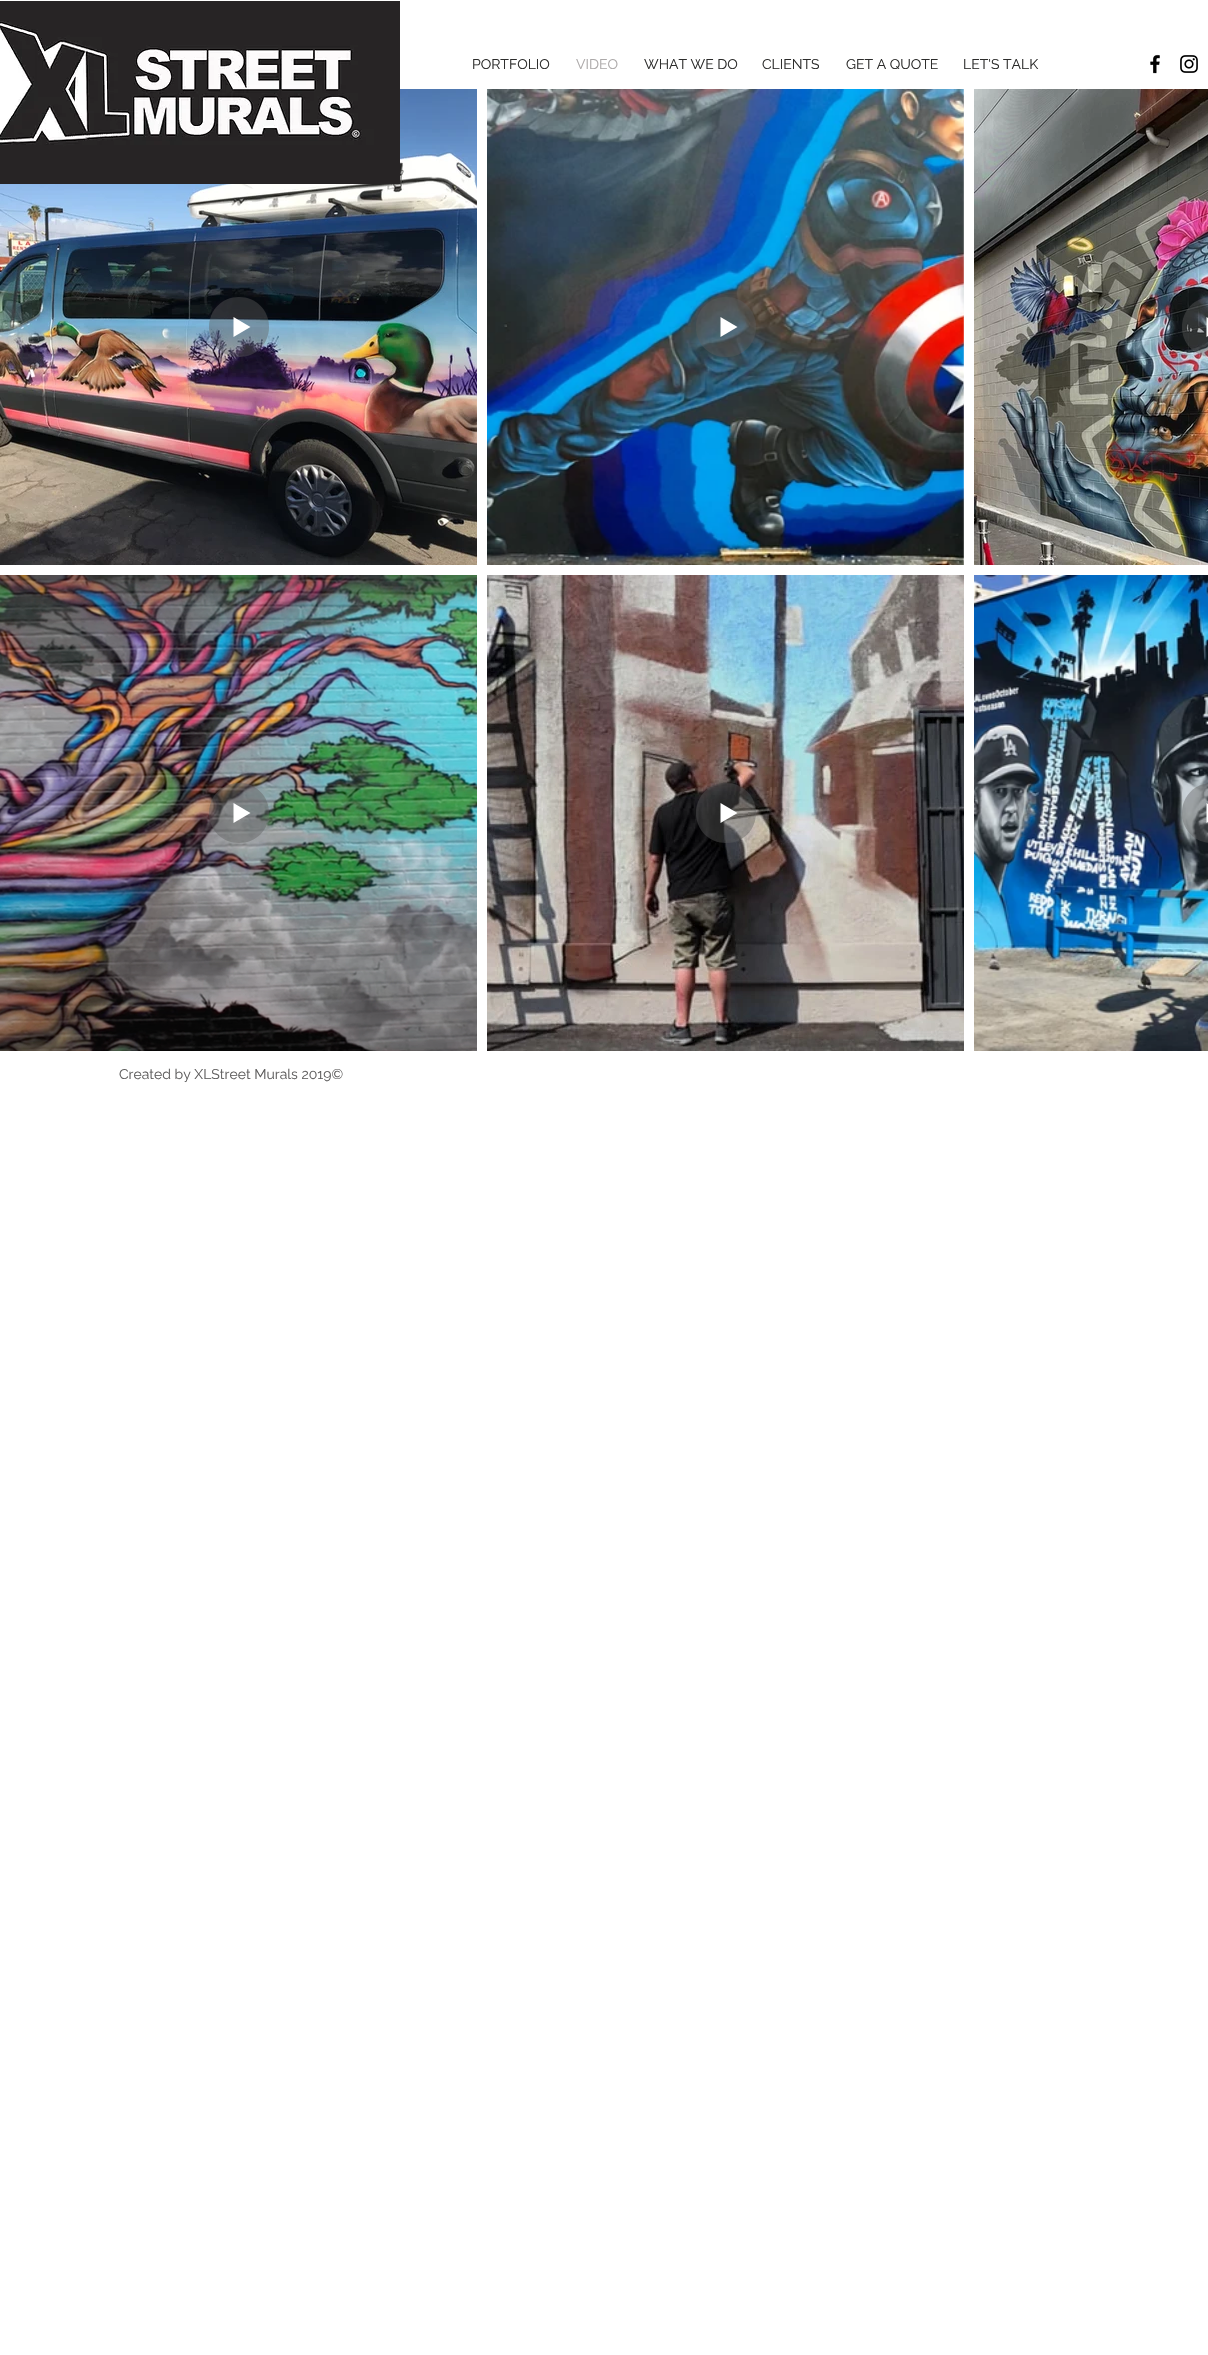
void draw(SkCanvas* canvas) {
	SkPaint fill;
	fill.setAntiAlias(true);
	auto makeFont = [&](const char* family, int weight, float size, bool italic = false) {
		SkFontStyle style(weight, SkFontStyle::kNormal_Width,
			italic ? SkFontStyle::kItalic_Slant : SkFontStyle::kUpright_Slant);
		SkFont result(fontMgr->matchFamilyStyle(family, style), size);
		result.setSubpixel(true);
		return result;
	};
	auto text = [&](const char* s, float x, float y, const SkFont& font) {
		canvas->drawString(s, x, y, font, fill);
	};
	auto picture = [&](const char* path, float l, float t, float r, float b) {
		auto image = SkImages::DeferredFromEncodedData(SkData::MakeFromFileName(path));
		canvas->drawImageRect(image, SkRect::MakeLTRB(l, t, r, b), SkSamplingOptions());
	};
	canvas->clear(0xFFFFFFFF);
	picture("image3.png", 0, 89, 477, 565);
	picture("image0.png", 0, 1, 400, 184);
	picture("image1.png", 1150, 54, 1160, 74);
	picture("image2.png", 1180, 55, 1198, 73);
	fill.setColor(0x6B5E5D5D);
	canvas->drawPath(SkPathBuilder(SkPathFillType::kEvenOdd).moveTo(239, 297).cubicTo(256, 297, 269, 310, 269, 327).cubicTo(269, 344, 256, 357, 239, 357).cubicTo(222, 357, 209, 344, 209, 327).cubicTo(209, 310, 222, 297, 239, 297).close().detach(), fill);
	fill.setColor(0xFFFFFFFF);
	canvas->drawPath(SkPathBuilder().moveTo(250.5f, 327).lineTo(233.5f, 337).lineTo(233.5f, 317).close().detach(), fill);
	picture("image4.png", 487, 89, 964, 565);
	fill.setColor(0x6B5E5D5D);
	canvas->drawPath(SkPathBuilder(SkPathFillType::kEvenOdd).moveTo(726, 297).cubicTo(743, 297, 756, 310, 756, 327).cubicTo(756, 344, 743, 357, 726, 357).cubicTo(709, 357, 696, 344, 696, 327).cubicTo(696, 310, 709, 297, 726, 297).close().detach(), fill);
	fill.setColor(0xFFFFFFFF);
	canvas->drawPath(SkPathBuilder().moveTo(737.5f, 327).lineTo(720.5f, 337).lineTo(720.5f, 317).close().detach(), fill);
	picture("image5.png", 974, 89, 1208, 565);
	fill.setColor(0x6B5E5D5D);
	canvas->drawPath(SkPathBuilder(SkPathFillType::kEvenOdd).moveTo(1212, 297).cubicTo(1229, 297, 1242, 310, 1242, 327).cubicTo(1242, 344, 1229, 357, 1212, 357).cubicTo(1195, 357, 1182, 344, 1182, 327).cubicTo(1182, 310, 1195, 297, 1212, 297).close().detach(), fill);
	fill.setColor(0xFFFFFFFF);
	canvas->drawPath(SkPathBuilder().moveTo(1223.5f, 327).lineTo(1206.5f, 337).lineTo(1206.5f, 317).close().detach(), fill);
	picture("image6.png", 0, 575, 477, 1051);
	fill.setColor(0x6B5E5D5D);
	canvas->drawPath(SkPathBuilder(SkPathFillType::kEvenOdd).moveTo(239, 783).cubicTo(256, 783, 269, 796, 269, 813).cubicTo(269, 830, 256, 843, 239, 843).cubicTo(222, 843, 209, 830, 209, 813).cubicTo(209, 796, 222, 783, 239, 783).close().detach(), fill);
	fill.setColor(0xFFFFFFFF);
	canvas->drawPath(SkPathBuilder().moveTo(250.5f, 813).lineTo(233.5f, 823).lineTo(233.5f, 803).close().detach(), fill);
	picture("image7.png", 487, 575, 964, 1051);
	fill.setColor(0x6B5E5D5D);
	canvas->drawPath(SkPathBuilder(SkPathFillType::kEvenOdd).moveTo(726, 783).cubicTo(743, 783, 756, 796, 756, 813).cubicTo(756, 830, 743, 843, 726, 843).cubicTo(709, 843, 696, 830, 696, 813).cubicTo(696, 796, 709, 783, 726, 783).close().detach(), fill);
	fill.setColor(0xFFFFFFFF);
	canvas->drawPath(SkPathBuilder().moveTo(737.5f, 813).lineTo(720.5f, 823).lineTo(720.5f, 803).close().detach(), fill);
	picture("image8.png", 974, 575, 1208, 1051);
	fill.setColor(0x6B5E5D5D);
	canvas->drawPath(SkPathBuilder(SkPathFillType::kEvenOdd).moveTo(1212, 783).cubicTo(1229, 783, 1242, 796, 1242, 813).cubicTo(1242, 830, 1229, 843, 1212, 843).cubicTo(1195, 843, 1182, 830, 1182, 813).cubicTo(1182, 796, 1195, 783, 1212, 783).close().detach(), fill);
	fill.setColor(0xFFFFFFFF);
	canvas->drawPath(SkPathBuilder().moveTo(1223.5f, 813).lineTo(1206.5f, 823).lineTo(1206.5f, 803).close().detach(), fill);
	auto font1 = makeFont("Raleway", 400, 14);
	fill.setColor(0xFF2C2C2B);
	text("PORTFOLIO", 472, 69, font1);
	fill.setColor(0xFFACA9A9);
	text("VIDEO", 576, 69, font1);
	fill.setColor(0xFF2C2C2B);
	text("WHAT WE DO", 644, 69, font1);
	text("CLIENTS", 762, 69, font1);
	text("GET A QUOTE", 846, 69, font1);
	text("LET'S TALK", 963, 69, font1);
	fill.setColor(0xFF5E5D5D);
	text("Created by XLStreet Murals 2019©", 119, 1079, font1);
}
